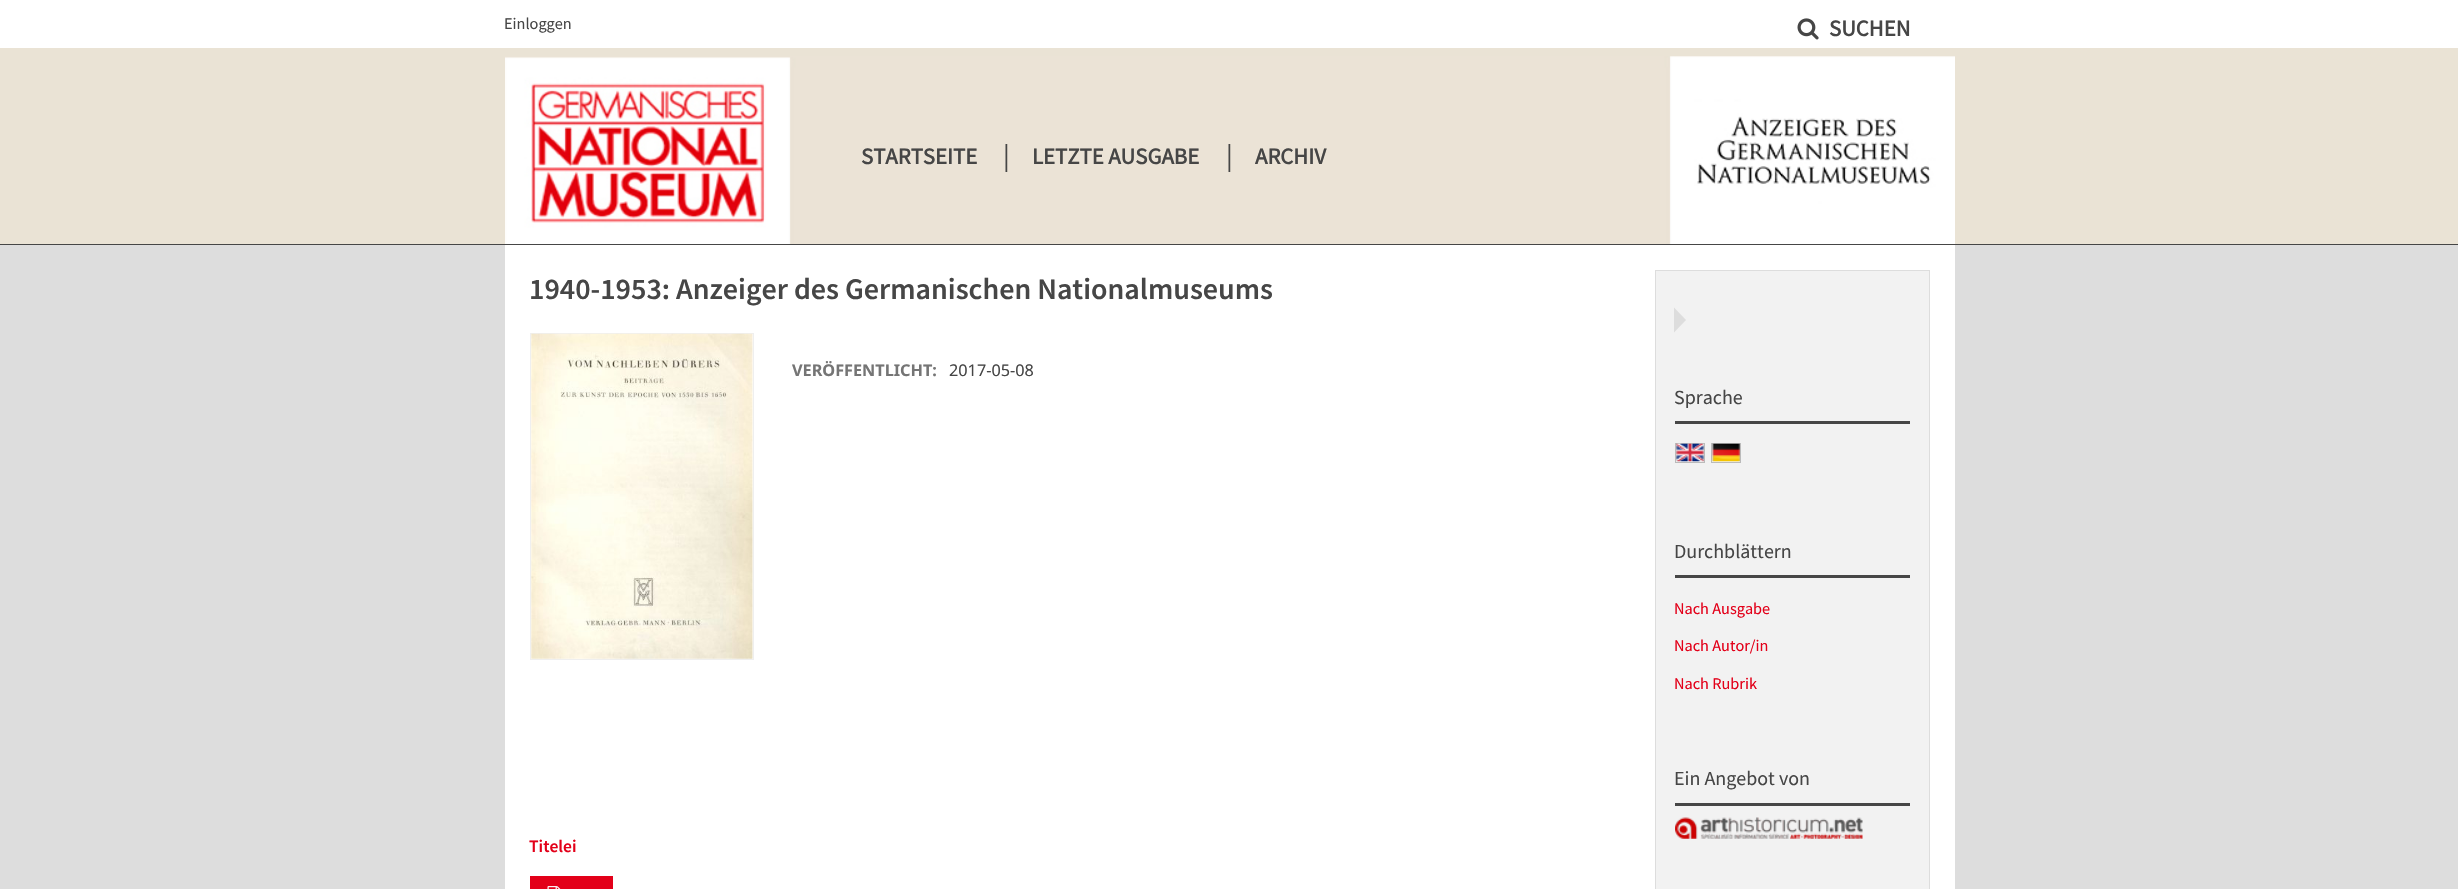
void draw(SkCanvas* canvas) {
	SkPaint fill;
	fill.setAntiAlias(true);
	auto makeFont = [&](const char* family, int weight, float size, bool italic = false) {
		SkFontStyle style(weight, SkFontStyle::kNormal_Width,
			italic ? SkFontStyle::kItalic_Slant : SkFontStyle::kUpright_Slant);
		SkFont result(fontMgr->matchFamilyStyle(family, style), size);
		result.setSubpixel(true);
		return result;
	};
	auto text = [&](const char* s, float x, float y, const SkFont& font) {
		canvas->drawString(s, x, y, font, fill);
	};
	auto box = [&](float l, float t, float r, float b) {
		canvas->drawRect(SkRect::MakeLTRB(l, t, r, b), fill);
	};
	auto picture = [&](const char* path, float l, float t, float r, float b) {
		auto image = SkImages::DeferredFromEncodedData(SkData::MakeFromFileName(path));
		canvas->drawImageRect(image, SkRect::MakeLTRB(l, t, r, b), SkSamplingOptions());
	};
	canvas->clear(0xFFDDDDDD);
	fill.setColor(0xFFEAE3D5);
	box(0, 48, 2458, 244);
	fill.setColor(0xFF464646);
	box(0, 244, 2458, 245);
	fill.setColor(0xFFFFFFFF);
	box(0, 0, 2458, 48);
	picture("image0.png", 1797, 18, 1819, 40);
	picture("image1.png", 505, 56, 1955, 244);
	box(505, 245, 1955, 889);
	fill.setStyle(SkPaint::kStroke_Style);
	fill.setStrokeWidth(1);
	fill.setColor(0xFFEFEFEF);
	canvas->drawRect(SkRect::MakeLTRB(530.5f, 333.5f, 753.5f, 659.5f), fill);
	picture("image2.png", 531, 333, 753, 659);
	fill.setStyle(SkPaint::kFill_Style);
	fill.setColor(0xFFE30019);
	box(530, 876, 613, 889);
	picture("image3.png", 547, 886, 561, 889);
	fill.setColor(0xFFF2F2F2);
	canvas->drawRect(SkRect::MakeLTRB(1655.5f, 270.5f, 1929.5f, 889.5f), fill);
	fill.setStyle(SkPaint::kStroke_Style);
	fill.setColor(0xFFDDDDDD);
	canvas->drawRect(SkRect::MakeLTRB(1655.5f, 270.5f, 1929.5f, 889.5f), fill);
	fill.setStyle(SkPaint::kFill_Style);
	canvas->drawPath(SkPathBuilder().moveTo(1674, 332.5f).lineTo(1674, 307.5f).lineTo(1686, 320).close().detach(), fill);
	fill.setColor(0xFF464646);
	box(1675, 421, 1910, 424);
	fill.setStyle(SkPaint::kStroke_Style);
	fill.setColor(0xFFBBBBBB);
	canvas->drawRect(SkRect::MakeLTRB(1675.5f, 443.5f, 1704.5f, 462.5f), fill);
	picture("image4.png", 1676, 443, 1704, 462);
	canvas->drawRect(SkRect::MakeLTRB(1711.5f, 443.5f, 1740.5f, 462.5f), fill);
	picture("image5.png", 1712, 443, 1740, 462);
	fill.setStyle(SkPaint::kFill_Style);
	fill.setColor(0xFF464646);
	box(1675, 575, 1910, 578);
	box(1675, 803, 1910, 806);
	picture("image6.png", 1675, 817, 1863, 839);
	auto font1 = makeFont("Source Sans Pro", 400, 16.25f);
	text("Einloggen", 504, 29, font1);
	auto font2 = makeFont("Source Sans Pro", 700, 22.75f);
	text("SUCHEN", 1829, 36, font2);
	text("STARTSEITE", 861, 164, font2);
	auto font3 = makeFont("Source Sans Pro", 400, 28);
	text("|", 1003, 165, font3);
	text("LETZTE AUSGABE", 1032, 164, font2);
	text("|", 1226, 165, font3);
	text("ARCHIV", 1255, 164, font2);
	auto font4 = makeFont("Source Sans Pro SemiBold", 600, 30);
	text("1940-1953: Anzeiger des Germanischen Nationalmuseums", 529, 299, font4);
	auto font5 = makeFont("Noto Sans", 700, 16.25f);
	fill.setColor(0xFF757575);
	text("VERÖFFENTLICHT:", 792, 376, font5);
	auto font6 = makeFont("Noto Sans", 400, 16.25f);
	fill.setColor(0xFF464646);
	text("2017-05-08", 949, 376, font6);
	auto font7 = makeFont("Source Sans Pro SemiBold", 600, 17.5f);
	fill.setColor(0xFFE30019);
	text("Titelei", 529, 852, font7);
	auto font8 = makeFont("Source Sans Pro", 400, 20);
	fill.setColor(0xFF464646);
	text("Sprache", 1674, 404, font8);
	text("Durchblättern", 1674, 558, font8);
	fill.setColor(0xFFE30019);
	text("Nach Ausgabe", 1674, 614, font1);
	text("Nach Autor/in", 1674, 651, font1);
	text("Nach Rubrik", 1674, 689, font1);
	fill.setColor(0xFF464646);
	text("Ein Angebot von", 1674, 785, font8);
}
